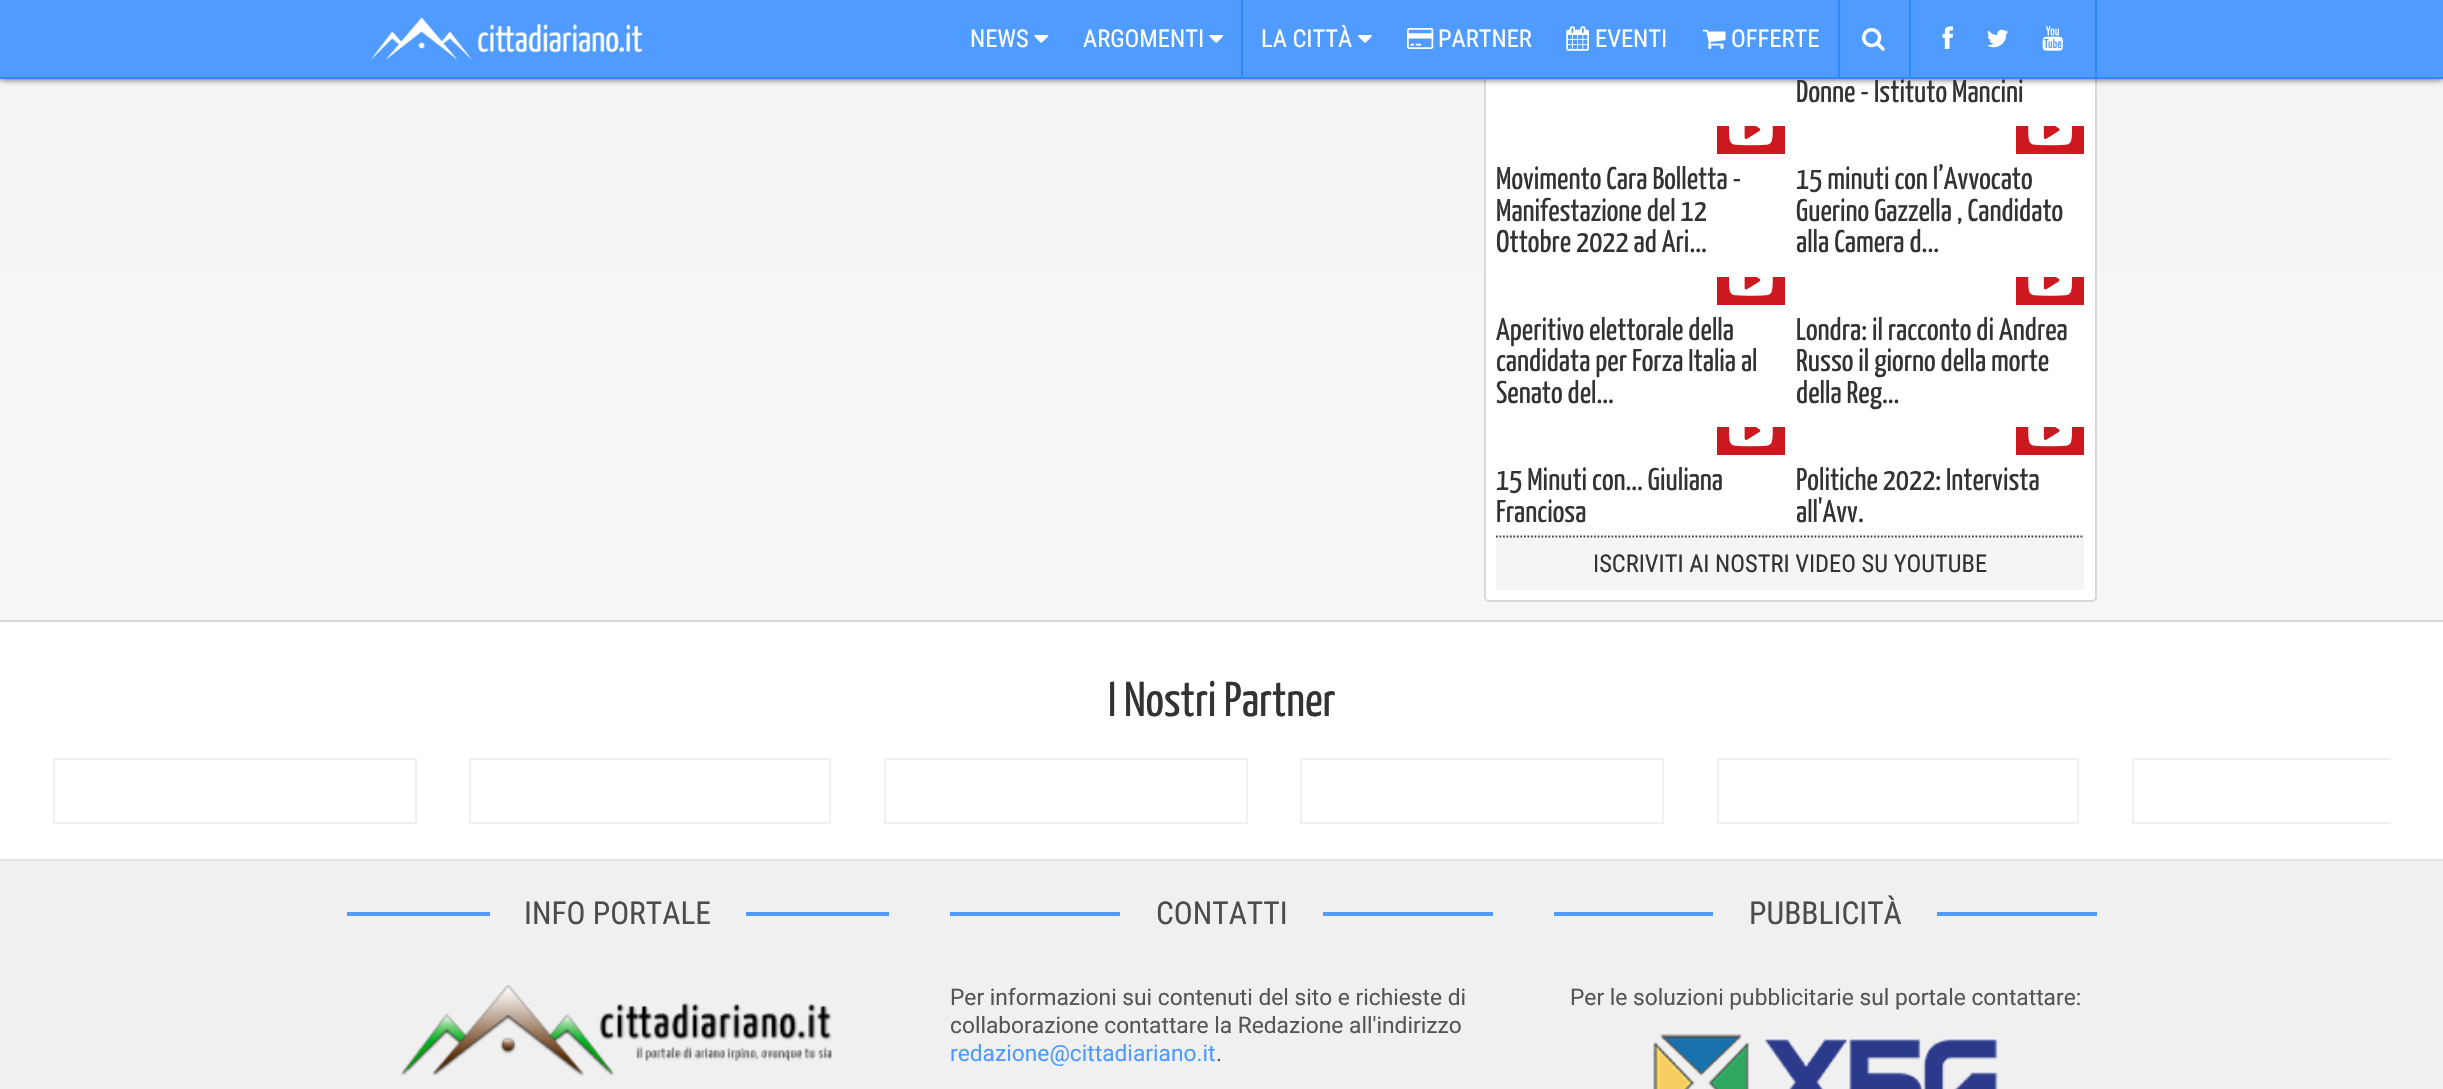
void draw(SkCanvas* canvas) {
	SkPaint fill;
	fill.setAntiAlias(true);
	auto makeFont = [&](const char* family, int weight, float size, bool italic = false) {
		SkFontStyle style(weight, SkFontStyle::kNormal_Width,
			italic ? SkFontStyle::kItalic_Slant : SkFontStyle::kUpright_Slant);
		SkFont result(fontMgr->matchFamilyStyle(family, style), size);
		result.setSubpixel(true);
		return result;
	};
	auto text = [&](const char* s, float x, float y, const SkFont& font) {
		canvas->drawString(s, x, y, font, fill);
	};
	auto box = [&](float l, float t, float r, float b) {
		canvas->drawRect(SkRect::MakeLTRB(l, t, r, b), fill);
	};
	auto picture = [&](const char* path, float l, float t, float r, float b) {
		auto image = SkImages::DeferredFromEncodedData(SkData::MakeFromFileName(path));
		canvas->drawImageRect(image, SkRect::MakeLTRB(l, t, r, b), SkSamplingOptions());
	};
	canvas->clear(0xFFFFFFFF);
	{
		const SkColor colors[] = {0xFFF5F5F5, 0xFFF7F7F7};
		const float stops[] = {0, 1};
		const SkPoint ends[] = {{1222, 0}, {1222, 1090}};
		fill.setShader(SkGradientShader::MakeLinear(ends, colors, stops, 2, SkTileMode::kClamp));
		fill.setAlpha(255);
	}
	box(0, 79, 2443, 620);
	fill.setShader(nullptr);
	fill.setColor(0xFFFFFFFF);
	canvas->drawRoundRect(SkRect::MakeLTRB(1485, -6, 2096, 601), 4, 4, fill);
	fill.setStyle(SkPaint::kStroke_Style);
	fill.setStrokeWidth(2);
	fill.setColor(0xFFD8D8D8);
	canvas->drawRoundRect(SkRect::MakeLTRB(1485, -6, 2096, 601), 4, 4, fill);
	fill.setStyle(SkPaint::kFill_Style);
	fill.setColor(0xFF444444);
	fill.setMaskFilter(SkMaskFilter::MakeBlur(kNormal_SkBlurStyle, 3.5f));
	canvas->drawRect(SkRect::MakeLTRB(0, 0, 2443, 79), fill);
	fill.setMaskFilter(nullptr);
	fill.setColor(0xFF509BFF);
	box(0, 0, 2443, 77);
	fill.setColor(0xFF2F87FA);
	box(0, 77, 2443, 79);
	picture("image0.png", 371, 17, 643, 60);
	picture("image1.png", 1034, 35, 1049, 43);
	box(1241, 0, 1243, 77);
	picture("image1.png", 1209, 35, 1224, 43);
	picture("image2.png", 1358, 35, 1372, 43);
	picture("image3.png", 1407, 28, 1434, 49);
	picture("image4.png", 1566, 26, 1589, 51);
	box(1838, 0, 1840, 77);
	picture("image5.png", 1702, 29, 1726, 49);
	box(1909, 0, 1911, 77);
	picture("image6.png", 1862, 28, 1885, 51);
	box(2095, 0, 2097, 77);
	picture("image7.png", 1942, 26, 1953, 49);
	picture("image8.png", 1987, 29, 2009, 48);
	picture("image9.png", 2042, 26, 2063, 51);
	fill.setColor(0xFFCC181E);
	box(1717, 126, 1785, 154);
	picture("image10.png", 1729, 126, 1773, 146);
	box(2016, 126, 2084, 154);
	picture("image11.png", 2028, 126, 2072, 146);
	box(1717, 277, 1785, 305);
	picture("image12.png", 1729, 277, 1773, 296);
	box(2016, 277, 2084, 305);
	picture("image13.png", 2028, 277, 2072, 296);
	box(1717, 427, 1785, 455);
	picture("image10.png", 1729, 427, 1773, 447);
	box(2016, 427, 2084, 455);
	picture("image11.png", 2028, 427, 2072, 447);
	fill.setColor(0xFFF5F5F5);
	box(1496, 536, 2084, 590);
	fill.setStyle(SkPaint::kStroke_Style);
	fill.setStrokeWidth(1.8f);
	fill.setColor(0xFF444444);
	fill.setPathEffect(SkDashPathEffect::Make({{1.75f, 1.75f}}, 0));
	canvas->drawPath(SkPathBuilder().moveTo(1496, 536.5f).lineTo(2084, 536.5f).detach(), fill);
	fill.setPathEffect(nullptr);
	fill.setStyle(SkPaint::kFill_Style);
	fill.setColor(0xFFD8D8D8);
	box(0, 620, 2443, 622);
	fill.setStyle(SkPaint::kStroke_Style);
	fill.setStrokeWidth(2);
	fill.setColor(0xFFF0F0F0);
	canvas->drawRect(SkRect::MakeLTRB(54, 759, 416, 823), fill);
	canvas->drawRect(SkRect::MakeLTRB(470, 759, 830, 823), fill);
	canvas->drawRect(SkRect::MakeLTRB(885, 759, 1247, 823), fill);
	canvas->drawRect(SkRect::MakeLTRB(1301, 759, 1663, 823), fill);
	canvas->drawRect(SkRect::MakeLTRB(1718, 759, 2078, 823), fill);
	canvas->save();
	canvas->clipRect(SkRect::MakeLTRB(53, 758, 2391, 824));
	canvas->drawRect(SkRect::MakeLTRB(2133, 759, 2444, 823), fill);
	canvas->restore();
	fill.setStyle(SkPaint::kFill_Style);
	box(0, 861, 2443, 1089);
	fill.setColor(0xFFE0E0E0);
	box(0, 859, 2443, 861);
	fill.setColor(0xFF509BFF);
	box(347, 912, 889, 916);
	fill.setColor(0xFFF0F0F0);
	box(490, 912, 746, 916);
	picture("image14.png", 400, 985, 832, 1076);
	fill.setColor(0xFF509BFF);
	box(950, 912, 1493, 916);
	fill.setColor(0xFFF0F0F0);
	box(1120, 912, 1323, 916);
	fill.setColor(0xFF509BFF);
	box(1554, 912, 2097, 916);
	fill.setColor(0xFFF0F0F0);
	box(1713, 912, 1937, 916);
	picture("image15.png", 1653, 1034, 1998, 1089);
	auto font1 = makeFont("Roboto Condensed", 400, 24.5f);
	fill.setColor(0xFFFFFFFF);
	text("NEWS", 970, 47, font1);
	text("ARGOMENTI", 1083, 47, font1);
	text("LA CITTÀ", 1261, 47, font1);
	text("PARTNER", 1438, 47, font1);
	text("EVENTI", 1595, 47, font1);
	text("OFFERTE", 1731, 47, font1);
	auto font2 = makeFont("Yanone Kaffeesatz", 400, 31.5f);
	fill.setColor(0xFF333333);
	text("Donne - Istituto Mancini", 1796, 102, font2);
	text("Movimento Cara Bolletta -", 1496, 189, font2);
	text("Manifestazione del 12", 1496, 221, font2);
	text("Ottobre 2022 ad Ari...", 1496, 252, font2);
	text("15 minuti con l’Avvocato", 1796, 189, font2);
	text("Guerino Gazzella , Candidato", 1796, 221, font2);
	text("alla Camera d...", 1796, 252, font2);
	text("Aperitivo elettorale della", 1496, 340, font2);
	text("candidata per Forza Italia al", 1496, 371, font2);
	text("Senato del...", 1496, 403, font2);
	text("Londra: il racconto di Andrea", 1796, 340, font2);
	text("Russo il giorno della morte", 1796, 371, font2);
	text("della Reg...", 1796, 403, font2);
	text("15 Minuti con... Giuliana", 1496, 490, font2);
	text("Franciosa", 1496, 522, font2);
	text("Politiche 2022: Intervista", 1796, 490, font2);
	text("all'Avv.", 1796, 522, font2);
	text("ISCRIVITI AI NOSTRI VIDEO SU YOUTUBE", 1593, 572, font1);
	auto font3 = makeFont("Yanone Kaffeesatz", 400, 49);
	text("I Nostri Partner", 1108, 716, font3);
	auto font4 = makeFont("Roboto Condensed", 400, 31.5f);
	fill.setColor(0xFF4C4C4C);
	text("INFO PORTALE", 524, 924, font4);
	text("CONTATTI", 1156, 924, font4);
	auto font5 = makeFont("Roboto", 400, 22.75f);
	fill.setColor(0xFF555555);
	text("Per informazioni sui contenuti del sito e richieste di", 950, 1005, font5);
	text("collaborazione contattare la Redazione all'indirizzo", 950, 1033, font5);
	fill.setColor(0xFF4F99FF);
	text("redazione@cittadiariano.it", 950, 1061, font5);
	fill.setColor(0xFF555555);
	text(".", 1216, 1061, font5);
	fill.setColor(0xFF4C4C4C);
	text("PUBBLICITÀ", 1749, 924, font4);
	fill.setColor(0xFF555555);
	text("Per le soluzioni pubblicitarie sul portale contattare:", 1570, 1005, font5);
}
